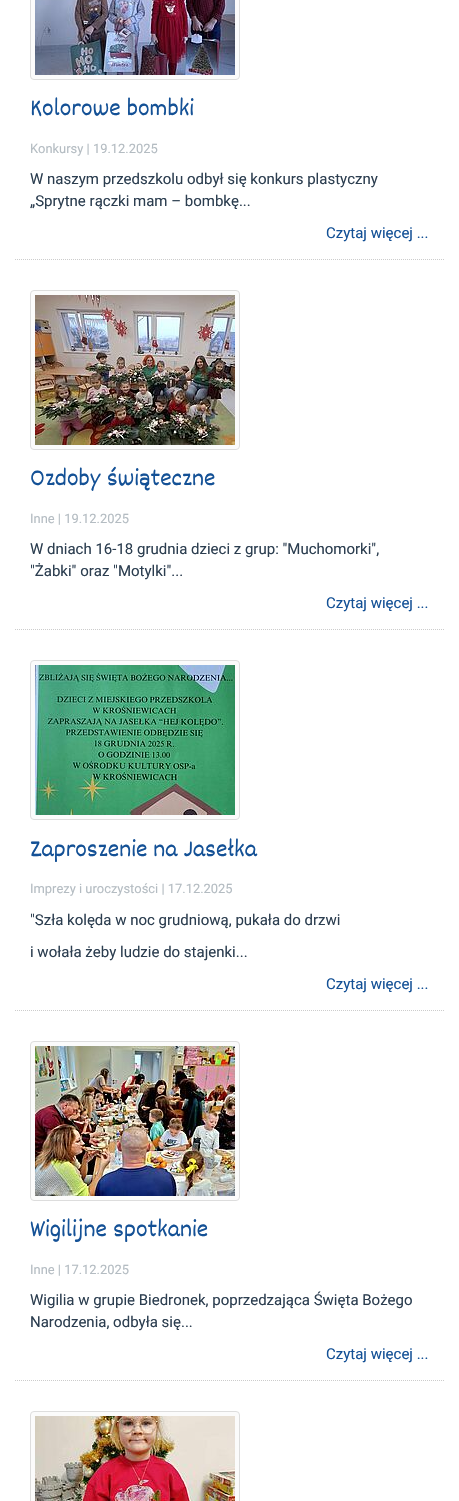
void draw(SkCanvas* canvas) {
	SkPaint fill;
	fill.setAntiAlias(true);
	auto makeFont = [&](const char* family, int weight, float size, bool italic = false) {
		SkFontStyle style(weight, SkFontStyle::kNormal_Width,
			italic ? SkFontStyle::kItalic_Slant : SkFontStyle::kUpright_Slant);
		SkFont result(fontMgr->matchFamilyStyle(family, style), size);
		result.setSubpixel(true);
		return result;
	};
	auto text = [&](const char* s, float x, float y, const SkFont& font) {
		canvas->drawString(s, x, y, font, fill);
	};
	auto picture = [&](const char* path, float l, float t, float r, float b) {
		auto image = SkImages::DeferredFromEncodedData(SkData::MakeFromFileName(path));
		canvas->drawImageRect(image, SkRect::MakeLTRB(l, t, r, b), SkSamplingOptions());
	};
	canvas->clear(0xFFFFFFFF);
	fill.setStyle(SkPaint::kStroke_Style);
	fill.setStrokeWidth(1);
	fill.setColor(0xFFCCCCCC);
	fill.setPathEffect(SkDashPathEffect::Make({{1, 1}}, 0));
	canvas->drawPath(SkPathBuilder().moveTo(15, 259.5f).lineTo(444, 259.5f).detach(), fill);
	fill.setPathEffect(nullptr);
	fill.setStyle(SkPaint::kFill_Style);
	fill.setColor(0xFFFBFBFB);
	canvas->drawRoundRect(SkRect::MakeLTRB(30.5f, -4.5f, 239.5f, 79.5f), 3.5f, 3.5f, fill);
	fill.setStyle(SkPaint::kStroke_Style);
	fill.setColor(0xFFDDDDDD);
	canvas->drawRoundRect(SkRect::MakeLTRB(30.5f, -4.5f, 239.5f, 79.5f), 3.5f, 3.5f, fill);
	picture("image0.png", 35, 0, 235, 75);
	fill.setColor(0xFFCCCCCC);
	fill.setPathEffect(SkDashPathEffect::Make({{1, 1}}, 0));
	canvas->drawPath(SkPathBuilder().moveTo(15, 629.5f).lineTo(444, 629.5f).detach(), fill);
	fill.setPathEffect(nullptr);
	fill.setStyle(SkPaint::kFill_Style);
	fill.setColor(0xFFFBFBFB);
	canvas->drawRoundRect(SkRect::MakeLTRB(30.5f, 290.5f, 239.5f, 449.5f), 3.5f, 3.5f, fill);
	fill.setStyle(SkPaint::kStroke_Style);
	fill.setColor(0xFFDDDDDD);
	canvas->drawRoundRect(SkRect::MakeLTRB(30.5f, 290.5f, 239.5f, 449.5f), 3.5f, 3.5f, fill);
	picture("image1.png", 35, 295, 235, 445);
	fill.setColor(0xFFCCCCCC);
	fill.setPathEffect(SkDashPathEffect::Make({{1, 1}}, 0));
	canvas->drawPath(SkPathBuilder().moveTo(15, 1010.5f).lineTo(444, 1010.5f).detach(), fill);
	fill.setPathEffect(nullptr);
	fill.setStyle(SkPaint::kFill_Style);
	fill.setColor(0xFFFBFBFB);
	canvas->drawRoundRect(SkRect::MakeLTRB(30.5f, 660.5f, 239.5f, 819.5f), 3.5f, 3.5f, fill);
	fill.setStyle(SkPaint::kStroke_Style);
	fill.setColor(0xFFDDDDDD);
	canvas->drawRoundRect(SkRect::MakeLTRB(30.5f, 660.5f, 239.5f, 819.5f), 3.5f, 3.5f, fill);
	picture("image2.png", 35, 665, 235, 815);
	fill.setColor(0xFFCCCCCC);
	fill.setPathEffect(SkDashPathEffect::Make({{1, 1}}, 0));
	canvas->drawPath(SkPathBuilder().moveTo(15, 1380.5f).lineTo(444, 1380.5f).detach(), fill);
	fill.setPathEffect(nullptr);
	fill.setStyle(SkPaint::kFill_Style);
	fill.setColor(0xFFFBFBFB);
	canvas->drawRoundRect(SkRect::MakeLTRB(30.5f, 1041.5f, 239.5f, 1200.5f), 3.5f, 3.5f, fill);
	fill.setStyle(SkPaint::kStroke_Style);
	fill.setColor(0xFFDDDDDD);
	canvas->drawRoundRect(SkRect::MakeLTRB(30.5f, 1041.5f, 239.5f, 1200.5f), 3.5f, 3.5f, fill);
	picture("image3.png", 35, 1046, 235, 1196);
	fill.setStyle(SkPaint::kFill_Style);
	fill.setColor(0xFFFBFBFB);
	canvas->drawRoundRect(SkRect::MakeLTRB(30.5f, 1411.5f, 239.5f, 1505.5f), 3.5f, 3.5f, fill);
	fill.setStyle(SkPaint::kStroke_Style);
	fill.setColor(0xFFDDDDDD);
	canvas->drawRoundRect(SkRect::MakeLTRB(30.5f, 1411.5f, 239.5f, 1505.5f), 3.5f, 3.5f, fill);
	picture("image4.png", 35, 1416, 235, 1501);
	auto font1 = makeFont("Dekko", 400, 26);
	fill.setStyle(SkPaint::kFill_Style);
	fill.setColor(0xFF145196);
	text("Kolorowe bombki", 30, 115, font1);
	auto font2 = makeFont("Roboto", 400, 12.9f);
	fill.setColor(0xFFB4BCC2);
	text("Konkursy | 19.12.2025", 30, 153, font2);
	auto font3 = makeFont("Roboto", 400, 15);
	fill.setColor(0xFF2C3E50);
	text("W naszym przedszkolu odbył się konkurs plastyczny", 30, 184, font3);
	text("„Sprytne rączki mam – bombkę...", 30, 206, font3);
	fill.setColor(0xFF145196);
	text("Czytaj więcej ...", 326, 238, font3);
	text("Ozdoby świąteczne", 30, 485, font1);
	fill.setColor(0xFFB4BCC2);
	text("Inne | 19.12.2025", 30, 523, font2);
	fill.setColor(0xFF2C3E50);
	text("W dniach 16-18 grudnia dzieci z grup: \"Muchomorki\",", 30, 554, font3);
	text("\"Żabki\" oraz \"Motylki\"...", 30, 576, font3);
	fill.setColor(0xFF145196);
	text("Czytaj więcej ...", 326, 608, font3);
	text("Zaproszenie na Jasełka", 30, 856, font1);
	fill.setColor(0xFFB4BCC2);
	text("Imprezy i uroczystości | 17.12.2025", 30, 893, font2);
	fill.setColor(0xFF2C3E50);
	text("\"Szła kolęda w noc grudniową, pukała do drzwi", 30, 925, font3);
	text("i wołała żeby ludzie do stajenki...", 30, 957, font3);
	fill.setColor(0xFF145196);
	text("Czytaj więcej ...", 326, 989, font3);
	text("Wigilijne spotkanie", 30, 1236, font1);
	fill.setColor(0xFFB4BCC2);
	text("Inne | 17.12.2025", 30, 1274, font2);
	fill.setColor(0xFF2C3E50);
	text("Wigilia w grupie Biedronek, poprzedzająca Święta Bożego", 30, 1305, font3);
	text("Narodzenia, odbyła się...", 30, 1327, font3);
	fill.setColor(0xFF145196);
	text("Czytaj więcej ...", 326, 1359, font3);
}
